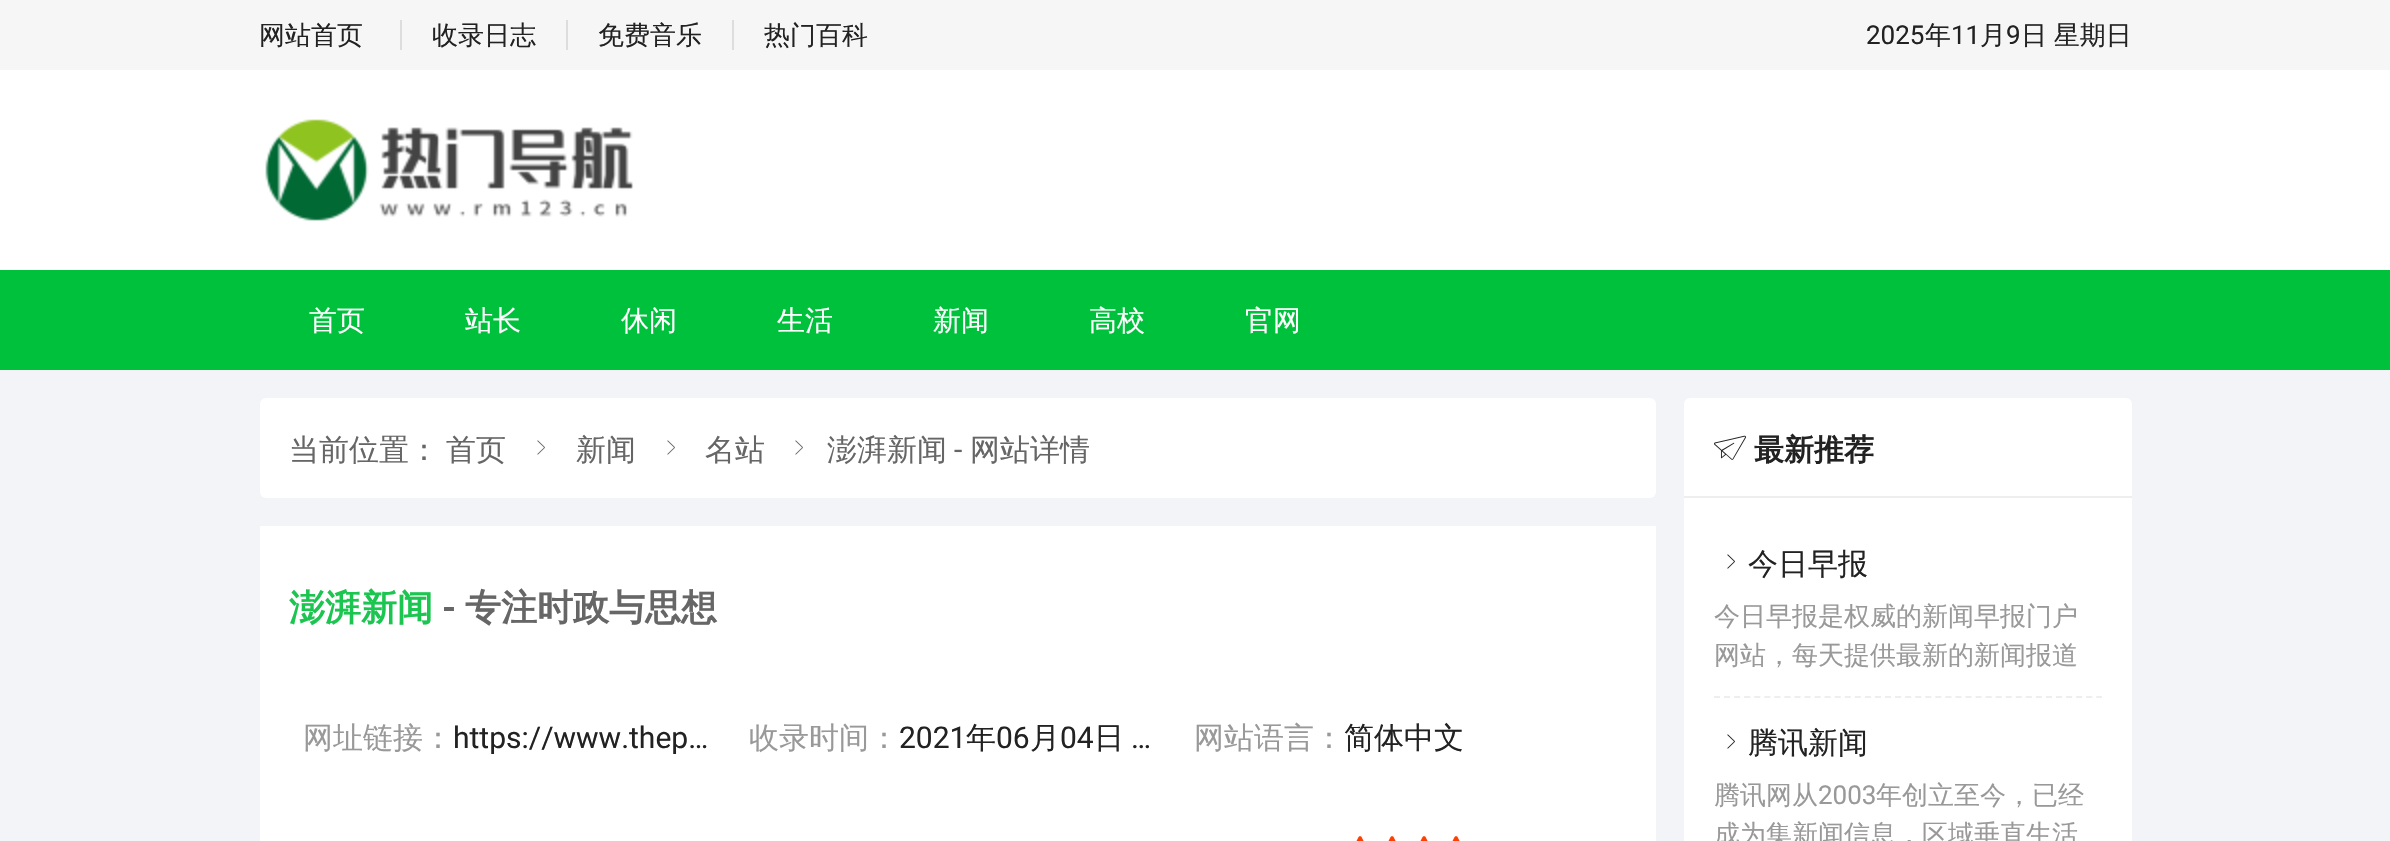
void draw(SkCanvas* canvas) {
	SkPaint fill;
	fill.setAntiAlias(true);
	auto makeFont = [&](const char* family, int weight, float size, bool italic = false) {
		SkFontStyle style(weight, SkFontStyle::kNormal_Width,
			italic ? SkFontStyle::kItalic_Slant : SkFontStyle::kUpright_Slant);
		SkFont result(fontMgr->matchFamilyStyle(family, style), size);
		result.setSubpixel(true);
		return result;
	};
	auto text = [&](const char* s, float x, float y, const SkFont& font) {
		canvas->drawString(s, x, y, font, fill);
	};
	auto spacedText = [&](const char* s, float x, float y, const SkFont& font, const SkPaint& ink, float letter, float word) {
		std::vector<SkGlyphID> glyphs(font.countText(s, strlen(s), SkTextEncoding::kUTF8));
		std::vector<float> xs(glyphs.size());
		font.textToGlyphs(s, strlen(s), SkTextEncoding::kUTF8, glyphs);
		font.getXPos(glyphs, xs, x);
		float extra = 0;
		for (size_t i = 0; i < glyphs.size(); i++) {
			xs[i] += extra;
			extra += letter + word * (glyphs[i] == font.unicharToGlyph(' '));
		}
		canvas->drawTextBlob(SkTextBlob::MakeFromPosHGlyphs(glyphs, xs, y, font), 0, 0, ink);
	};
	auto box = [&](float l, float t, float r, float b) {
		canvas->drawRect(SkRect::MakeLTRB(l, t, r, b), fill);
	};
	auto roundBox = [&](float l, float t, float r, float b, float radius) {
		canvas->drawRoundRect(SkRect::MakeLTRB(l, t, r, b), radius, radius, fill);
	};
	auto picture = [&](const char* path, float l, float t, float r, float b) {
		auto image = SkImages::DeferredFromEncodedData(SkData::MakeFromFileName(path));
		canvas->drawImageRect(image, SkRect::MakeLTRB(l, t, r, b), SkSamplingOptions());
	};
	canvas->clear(0xFFF3F4F7);
	fill.setColor(0xFFF6F6F6);
	box(0, 0, 2390, 70);
	fill.setColor(0xFFDDDDDD);
	box(400, 20, 402, 50);
	box(566, 20, 568, 50);
	box(732, 20, 734, 50);
	fill.setColor(0xFFFFFFFF);
	box(0, 70, 2390, 270);
	picture("image0.png", 265, 119, 634, 221);
	fill.setColor(0xFF00C13C);
	box(0, 270, 2390, 370);
	fill.setColor(0xFFFFFFFF);
	roundBox(260, 398, 1656, 498, 6);
	picture("image1.png", 537, 440, 545, 455);
	picture("image1.png", 667, 440, 675, 455);
	picture("image1.png", 795, 440, 803, 455);
	box(260, 526, 1656, 841);
	picture("image2.png", 1356, 836, 1364, 841);
	picture("image2.png", 1388, 836, 1396, 841);
	picture("image2.png", 1420, 836, 1428, 841);
	picture("image2.png", 1452, 836, 1460, 841);
	roundBox(1684, 398, 2132, 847, 6);
	fill.setColor(0xFFEEEEEE);
	box(1684, 496, 2132, 498);
	picture("image3.png", 1714, 435, 1747, 460);
	fill.setStyle(SkPaint::kStroke_Style);
	fill.setStrokeWidth(2);
	fill.setPathEffect(SkDashPathEffect::Make({{6, 4.06f}}, 0));
	canvas->drawPath(SkPathBuilder().moveTo(1714, 697).lineTo(2102, 697).detach(), fill);
	fill.setPathEffect(nullptr);
	picture("image4.png", 1727, 554, 1735, 569);
	picture("image4.png", 1727, 734, 1735, 749);
	auto font1 = makeFont("WenQuanYi Zen Hei", 500, 26);
	fill.setStyle(SkPaint::kFill_Style);
	fill.setColor(0xFF222222);
	text("网站首页", 259, 44, font1);
	text("收录日志", 432, 44, font1);
	text("免费音乐", 598, 44, font1);
	text("热门百科", 764, 44, font1);
	auto font2 = makeFont("Roboto", 400, 26);
	text("2025", 1866, 44, font2);
	text("年", 1925, 44, font1);
	text("11", 1951, 44, font2);
	text("月", 1980, 44, font1);
	text("9", 2006, 44, font2);
	spacedText("日 星期日", 2021, 44, font1, fill, 0, -1);
	auto font3 = makeFont("WenQuanYi Zen Hei", 500, 28);
	fill.setColor(0xFFFFFFFF);
	text("首页", 309, 330, font3);
	text("站长", 465, 330, font3);
	text("休闲", 621, 330, font3);
	text("生活", 777, 330, font3);
	text("新闻", 933, 330, font3);
	text("高校", 1089, 330, font3);
	text("官网", 1245, 330, font3);
	auto font4 = makeFont("WenQuanYi Zen Hei", 500, 30);
	fill.setColor(0xFF666666);
	text("当前位置：", 289, 460, font4);
	text("首页", 446, 460, font4);
	text("新闻", 576, 460, font4);
	text("名站", 705, 460, font4);
	text("澎湃新闻", 827, 460, font4);
	auto font5 = makeFont("Roboto", 400, 30);
	text("-", 954, 460, font5);
	text("网站详情", 970, 460, font4);
	auto font6 = makeFont("WenQuanYi Zen Hei", 700, 36);
	fill.setColor(0xFF1BC550);
	text("澎湃新闻", 289, 620, font6);
	auto font7 = makeFont("Roboto", 700, 36);
	fill.setColor(0xFF666666);
	text("-", 442, 620, font7);
	text("专注时政与思想", 465, 620, font6);
	fill.setColor(0xFF999999);
	text("网址链接：", 303, 748, font4);
	fill.setColor(0xFF222222);
	text("https://www.thep…", 453, 748, font5);
	fill.setColor(0xFF999999);
	text("收录时间：", 749, 748, font4);
	fill.setColor(0xFF222222);
	text("2021", 899, 748, font5);
	text("年", 966, 748, font4);
	text("06", 996, 748, font5);
	text("月", 1030, 748, font4);
	text("04", 1060, 748, font5);
	text("日", 1094, 748, font4);
	text("…", 1131, 748, font5);
	fill.setColor(0xFF999999);
	text("网站语言：", 1194, 748, font4);
	fill.setColor(0xFF222222);
	text("简体中文", 1344, 748, font4);
	auto font8 = makeFont("WenQuanYi Zen Hei", 700, 30);
	text("最新推荐", 1754, 460, font8);
	text("今日早报", 1748, 574, font4);
	fill.setColor(0xFF999999);
	text("今日早报是权威的新闻早报门户", 1714, 625, font1);
	text("网站，每天提供最新的新闻报道", 1714, 664, font1);
	fill.setColor(0xFF222222);
	text("腾讯新闻", 1748, 753, font4);
	fill.setColor(0xFF999999);
	text("腾讯网从", 1714, 804, font1);
	text("2003", 1818, 804, font2);
	text("年创立至今，已经", 1876, 804, font1);
	text("成为集新闻信息，区域垂直生活", 1714, 843, font1);
}
